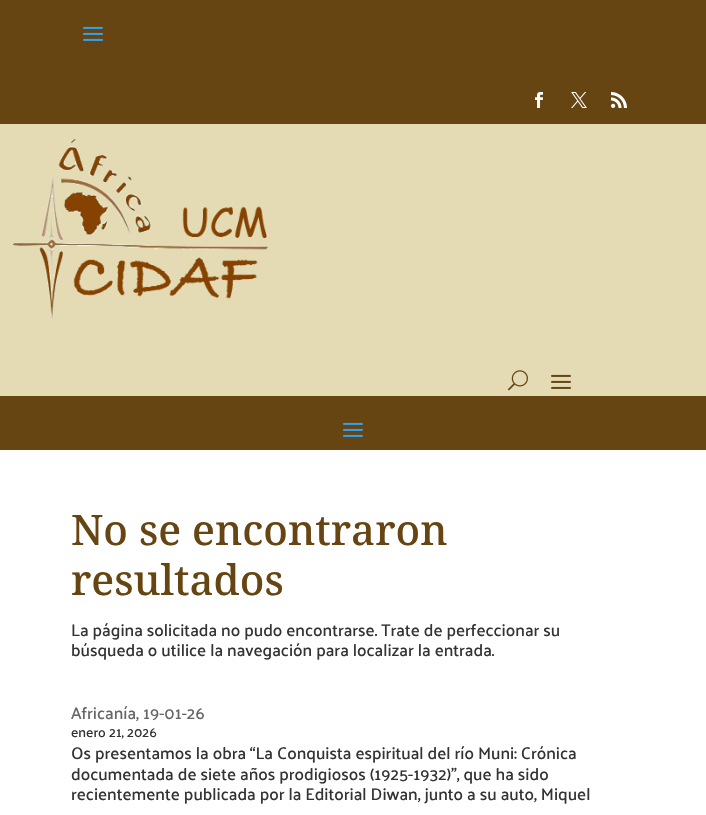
void draw(SkCanvas* canvas) {
	SkPaint fill;
	fill.setAntiAlias(true);
	auto makeFont = [&](const char* family, int weight, float size, bool italic = false) {
		SkFontStyle style(weight, SkFontStyle::kNormal_Width,
			italic ? SkFontStyle::kItalic_Slant : SkFontStyle::kUpright_Slant);
		SkFont result(fontMgr->matchFamilyStyle(family, style), size);
		result.setSubpixel(true);
		return result;
	};
	auto text = [&](const char* s, float x, float y, const SkFont& font) {
		canvas->drawString(s, x, y, font, fill);
	};
	auto box = [&](float l, float t, float r, float b) {
		canvas->drawRect(SkRect::MakeLTRB(l, t, r, b), fill);
	};
	auto picture = [&](const char* path, float l, float t, float r, float b) {
		auto image = SkImages::DeferredFromEncodedData(SkData::MakeFromFileName(path));
		canvas->drawImageRect(image, SkRect::MakeLTRB(l, t, r, b), SkSamplingOptions());
	};
	canvas->clear(0xFFFFFFFF);
	fill.setColor(0xFF664512);
	box(0, 0, 706, 450);
	picture("image0.png", 83, 26, 103, 41);
	picture("image1.png", 535, 92, 543, 108);
	picture("image2.png", 571, 92, 587, 108);
	picture("image3.png", 611, 92, 627, 108);
	fill.setColor(0xFFE4DBB4);
	box(0, 124, 706, 396);
	picture("image4.png", 12, 138, 269, 319);
	picture("image5.png", 508, 370, 528, 391);
	picture("image6.png", 551, 374, 571, 389);
	picture("image0.png", 343, 422, 363, 437);
	auto font1 = makeFont("Noto Serif Gurmukhi", 500, 42);
	fill.setColor(0xFF664512);
	text("No se encontraron", 71, 545, font1);
	text("resultados", 71, 595, font1);
	auto font2 = makeFont("Palanquin", 500, 17);
	fill.setColor(0xFF333333);
	text("La página solicitada no pudo encontrarse. Trate de perfeccionar su", 71, 636, font2);
	text("búsqueda o utilice la navegación para localizar la entrada.", 71, 656, font2);
	fill.setColor(0xFF666666);
	text("Africanía, 19-01-26", 71, 719, font2);
	auto font3 = makeFont("Palanquin", 500, 13.75f);
	fill.setColor(0xFF333333);
	text("enero 21, 2026", 71, 737, font3);
	text("Os presentamos la obra “La Conquista espiritual del río Muni: Crónica", 71, 759, font2);
	text("documentada de siete años prodigiosos (1925-1932)\", que ha sido", 71, 780, font2);
	text("recientemente publicada por la Editorial Diwan, junto a su auto, Miquel", 71, 800, font2);
}
